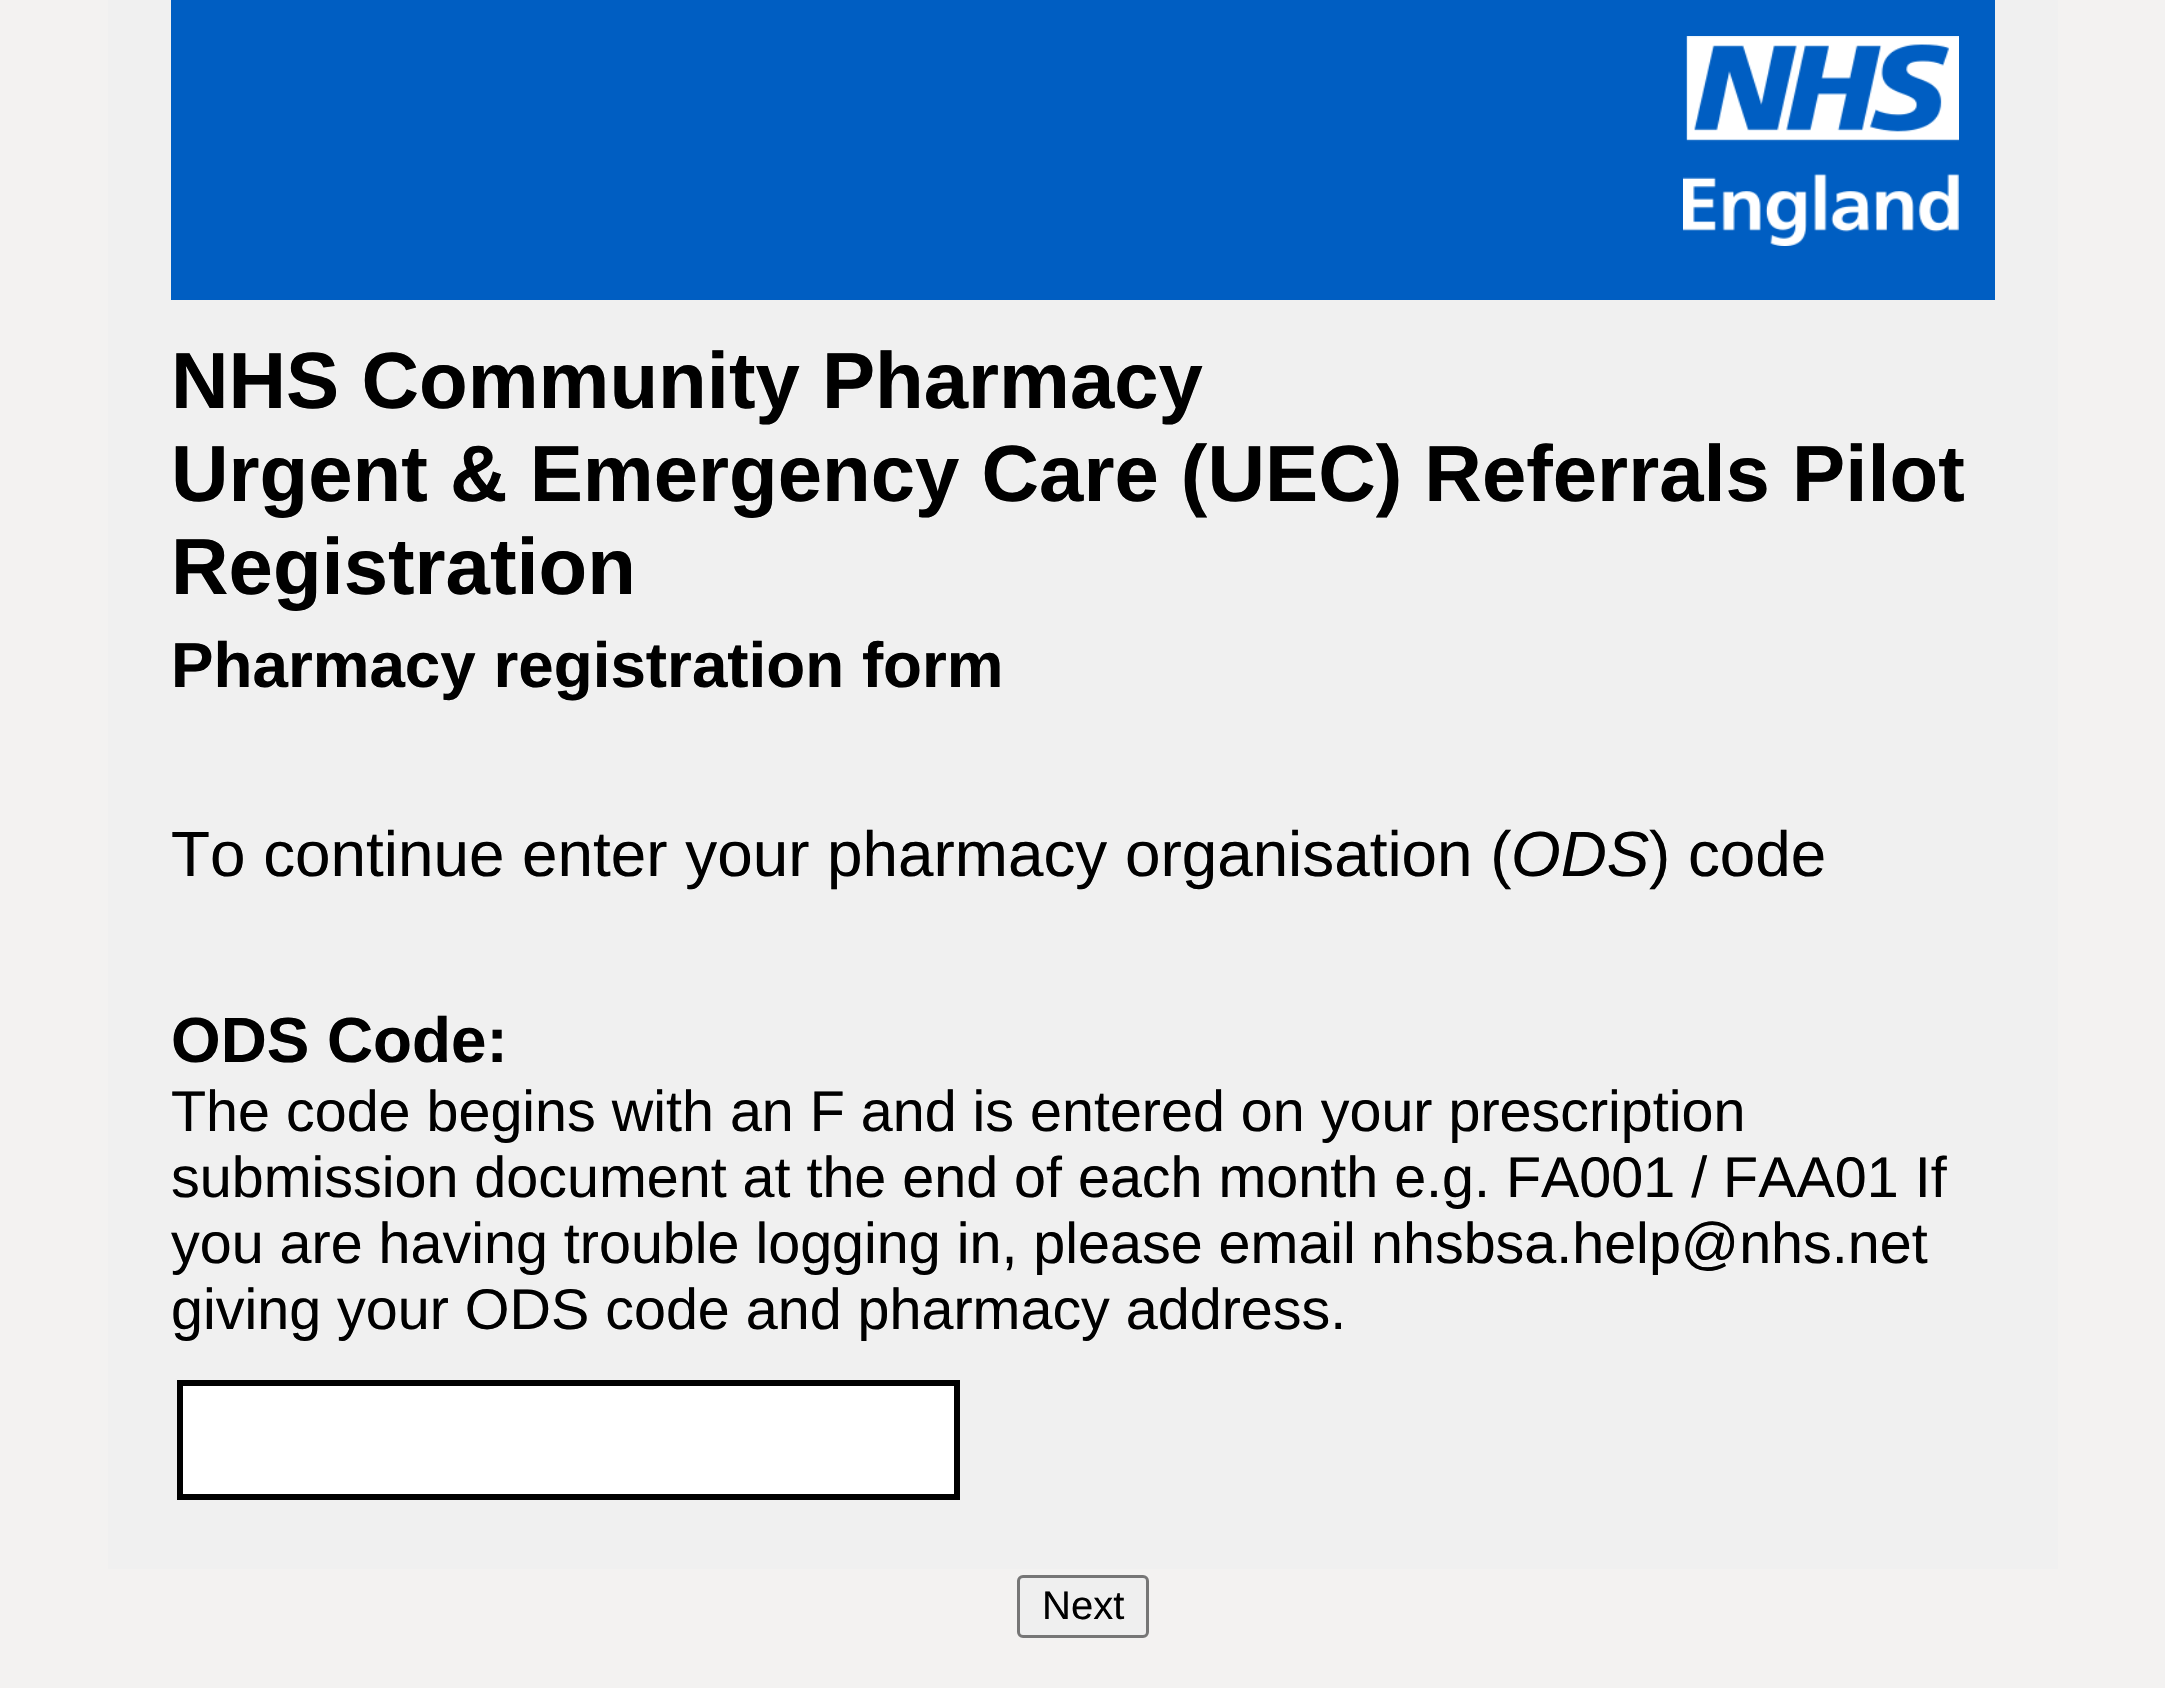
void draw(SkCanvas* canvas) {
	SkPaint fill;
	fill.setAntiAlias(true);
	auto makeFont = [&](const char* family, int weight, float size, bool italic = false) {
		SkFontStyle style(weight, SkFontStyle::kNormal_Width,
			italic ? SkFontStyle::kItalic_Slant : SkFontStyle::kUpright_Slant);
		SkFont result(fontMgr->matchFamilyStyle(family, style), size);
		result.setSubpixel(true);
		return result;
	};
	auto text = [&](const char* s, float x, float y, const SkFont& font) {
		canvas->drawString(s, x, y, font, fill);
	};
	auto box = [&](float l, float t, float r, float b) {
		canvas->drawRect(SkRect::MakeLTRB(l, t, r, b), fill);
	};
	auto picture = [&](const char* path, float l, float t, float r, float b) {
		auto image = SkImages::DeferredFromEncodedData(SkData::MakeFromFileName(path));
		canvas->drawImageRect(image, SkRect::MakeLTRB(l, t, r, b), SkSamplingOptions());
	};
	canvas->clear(0xFFF3F2F1);
	fill.setColor(0xFFF0F0F0);
	box(108, 0, 2058, 1569);
	fill.setColor(0xFF005EC2);
	box(171, 0, 1995, 300);
	picture("image0.png", 1683, 36, 1959, 246);
	fill.setColor(0xFFFFFFFF);
	canvas->drawRect(SkRect::MakeLTRB(180, 1383, 957, 1497), fill);
	fill.setStyle(SkPaint::kStroke_Style);
	fill.setStrokeWidth(6);
	fill.setColor(0xFF000000);
	canvas->drawRect(SkRect::MakeLTRB(180, 1383, 957, 1497), fill);
	fill.setStyle(SkPaint::kFill_Style);
	fill.setColor(0xFFEFEFEF);
	canvas->drawRoundRect(SkRect::MakeLTRB(1018.5f, 1576.5f, 1147.5f, 1636.5f), 4.5f, 4.5f, fill);
	fill.setStyle(SkPaint::kStroke_Style);
	fill.setStrokeWidth(3);
	fill.setColor(0xFF767676);
	canvas->drawRoundRect(SkRect::MakeLTRB(1018.5f, 1576.5f, 1147.5f, 1636.5f), 4.5f, 4.5f, fill);
	auto font1 = makeFont("Liberation Sans", 700, 79.7f);
	fill.setStyle(SkPaint::kFill_Style);
	fill.setColor(0xFF000000);
	text("NHS Community Pharmacy", 171, 408, font1);
	text("Urgent & Emergency Care (UEC) Referrals Pilot", 171, 501, font1);
	text("Registration", 171, 594, font1);
	auto font2 = makeFont("Liberation Sans", 700, 63.75f);
	text("Pharmacy registration form", 171, 687, font2);
	auto font3 = makeFont("Liberation Sans", 400, 63.8f);
	text("To continue enter your pharmacy organisation (", 171, 876, font3);
	auto font4 = makeFont("Liberation Sans", 400, 63.8f, true);
	text("ODS", 1511, 876, font4);
	text(") code", 1649, 876, font3);
	auto font5 = makeFont("Liberation Sans", 700, 63.8f);
	text("ODS Code:", 171, 1062, font5);
	auto font6 = makeFont("Liberation Sans", 400, 57.45f);
	text("The code begins with an F and is entered on your prescription", 171, 1131, font6);
	text("submission document at the end of each month e.g. FA001 / FAA01 If", 171, 1197, font6);
	text("you are having trouble logging in, please email", 171, 1263, font6);
	text("nhsbsa.help@nhs.net", 1371, 1263, font6);
	text("giving your ODS code and pharmacy address.", 171, 1329, font6);
	auto font7 = makeFont("Liberation Sans", 400, 40);
	text("Next", 1042, 1619, font7);
}
